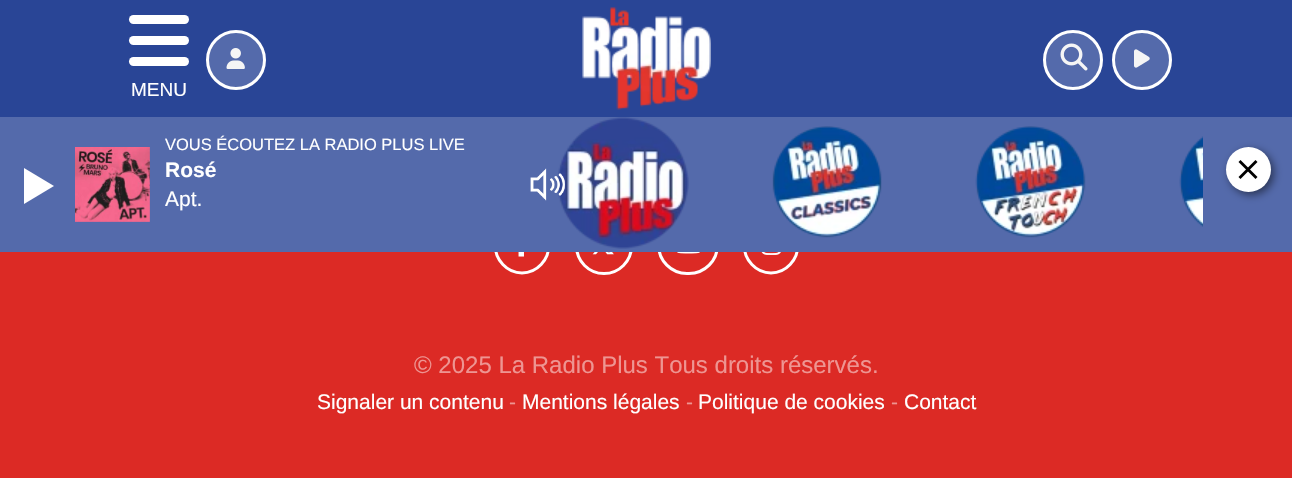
void draw(SkCanvas* canvas) {
	SkPaint fill;
	fill.setAntiAlias(true);
	auto makeFont = [&](const char* family, int weight, float size, bool italic = false) {
		SkFontStyle style(weight, SkFontStyle::kNormal_Width,
			italic ? SkFontStyle::kItalic_Slant : SkFontStyle::kUpright_Slant);
		SkFont result(fontMgr->matchFamilyStyle(family, style), size);
		result.setSubpixel(true);
		return result;
	};
	auto text = [&](const char* s, float x, float y, const SkFont& font) {
		canvas->drawString(s, x, y, font, fill);
	};
	auto box = [&](float l, float t, float r, float b) {
		canvas->drawRect(SkRect::MakeLTRB(l, t, r, b), fill);
	};
	auto roundBox = [&](float l, float t, float r, float b, float radius) {
		canvas->drawRoundRect(SkRect::MakeLTRB(l, t, r, b), radius, radius, fill);
	};
	auto picture = [&](const char* path, float l, float t, float r, float b) {
		auto image = SkImages::DeferredFromEncodedData(SkData::MakeFromFileName(path));
		canvas->drawImageRect(image, SkRect::MakeLTRB(l, t, r, b), SkSamplingOptions());
	};
	canvas->clear(0xFFDC2A25);
	fill.setColor(0xFF294596);
	box(0, 0, 1292, 117);
	fill.setColor(0xFFFFFFFF);
	roundBox(129, 15, 189, 24, 4.5f);
	roundBox(129, 36, 189, 45, 4.5f);
	roundBox(129, 57, 189, 66, 4.5f);
	fill.setColor(0xFF546AAB);
	canvas->drawCircle(236, 60, 28.5f, fill);
	fill.setStyle(SkPaint::kStroke_Style);
	fill.setStrokeWidth(3);
	fill.setColor(0xFFFFFFFF);
	canvas->drawCircle(236, 60, 28.5f, fill);
	picture("image0.png", 226, 48, 245, 69);
	picture("image1.png", 582, 7, 711, 110);
	fill.setStyle(SkPaint::kFill_Style);
	fill.setColor(0xFF546AAB);
	canvas->drawCircle(1073, 60, 28.5f, fill);
	fill.setStyle(SkPaint::kStroke_Style);
	fill.setColor(0xFFFFFFFF);
	canvas->drawCircle(1073, 60, 28.5f, fill);
	picture("image2.png", 1060, 43, 1088, 71);
	fill.setStyle(SkPaint::kFill_Style);
	fill.setColor(0xFF546AAB);
	canvas->drawCircle(1142, 60, 28.5f, fill);
	fill.setStyle(SkPaint::kStroke_Style);
	fill.setColor(0xFFFFFFFF);
	canvas->drawCircle(1142, 60, 28.5f, fill);
	picture("image3.png", 1134, 49, 1150, 68);
	canvas->drawPath(SkPathBuilder().moveTo(522, 216).cubicTo(537, 216, 549, 229, 549, 244.5f).cubicTo(549, 260, 537, 273, 522, 273).cubicTo(507, 273, 495, 260, 495, 244.5f).cubicTo(495, 229, 507, 216, 522, 216).close().detach(), fill);
	picture("image4.png", 518, 252, 524, 257);
	canvas->drawRoundRect(SkRect::MakeLTRB(576.5f, 216.5f, 631.5f, 273.5f), 27.5f, 27.5f, fill);
	picture("image5.png", 592, 252, 614, 255);
	canvas->drawRoundRect(SkRect::MakeLTRB(658.5f, 216.5f, 717.5f, 273.5f), 28.5f, 28.5f, fill);
	picture("image6.png", 677, 252, 700, 254);
	canvas->drawPath(SkPathBuilder().moveTo(771, 216).cubicTo(786, 216, 798, 229, 798, 244.5f).cubicTo(798, 260, 786, 273, 771, 273).cubicTo(756, 273, 744, 260, 744, 244.5f).cubicTo(744, 229, 756, 216, 771, 216).close().detach(), fill);
	picture("image7.png", 761, 252, 781, 255);
	fill.setStyle(SkPaint::kFill_Style);
	fill.setColor(0xFF546AAB);
	box(0, 117, 1292, 252);
	picture("image8.png", 75, 147, 150, 222);
	fill.setColor(0xFFFFFFFF);
	canvas->drawPath(SkPathBuilder().moveTo(24, 204).lineTo(24, 168).lineTo(54, 186).close().detach(), fill);
	picture("image10.png", 557, 117, 689, 249);
	picture("image9.png", 530, 168, 565, 201);
	picture("image11.png", 772, 126, 882, 238);
	picture("image12.png", 975, 126, 1086, 238);
	picture("image13.png", 1179, 136, 1203, 227);
	fill.setColor(0x80000000);
	fill.setMaskFilter(SkMaskFilter::MakeBlur(kNormal_SkBlurStyle, 4));
	canvas->drawRoundRect(SkRect::MakeLTRB(1229, 150, 1274, 195), 22.5f, 22.5f, fill);
	fill.setMaskFilter(nullptr);
	fill.setColor(0xFFFFFFFF);
	canvas->drawCircle(1248.5f, 169.5f, 22.5f, fill);
	fill.setColor(0xFF000000);
	canvas->drawPath(SkPathBuilder().moveTo(1240.5f, 160).lineTo(1257.5f, 177).lineTo(1255.5f, 179).lineTo(1238.5f, 162).close().detach(), fill);
	canvas->drawPath(SkPathBuilder().moveTo(1238.5f, 177).lineTo(1255.5f, 160).lineTo(1257.5f, 162).lineTo(1240.5f, 179).close().detach(), fill);
	canvas->save();
	canvas->clipRect(SkRect::MakeLTRB(129, 15, 189, 96));
	auto font1 = makeFont("Liberation Sans", 400, 19);
	fill.setColor(0xFFFFFFFF);
	text("MENU", 131, 96, font1);
	canvas->restore();
	auto font2 = makeFont("Liberation Sans", 400, 24);
	fill.setColor(0xFFEE9592);
	text("© 2025 La Radio Plus Tous droits réservés.", 414, 373, font2);
	auto font3 = makeFont("Liberation Sans", 400, 21);
	fill.setColor(0xFFFFFFFF);
	text("Signaler un contenu", 317, 409, font3);
	fill.setColor(0xFFEE9592);
	text("-", 509, 409, font3);
	fill.setColor(0xFFFFFFFF);
	text("Mentions légales", 522, 409, font3);
	fill.setColor(0xFFEE9592);
	text("-", 686, 409, font3);
	fill.setColor(0xFFFFFFFF);
	text("Politique de cookies", 698, 409, font3);
	fill.setColor(0xFFEE9592);
	text("-", 891, 409, font3);
	fill.setColor(0xFFFFFFFF);
	text("Contact", 904, 409, font3);
	auto font4 = makeFont("Liberation Sans", 400, 16.5f);
	text("VOUS ÉCOUTEZ LA RADIO PLUS LIVE", 165, 150, font4);
	auto font5 = makeFont("Liberation Sans", 700, 21);
	text("Rosé", 165, 177, font5);
	text("Apt.", 165, 206, font3);
}
